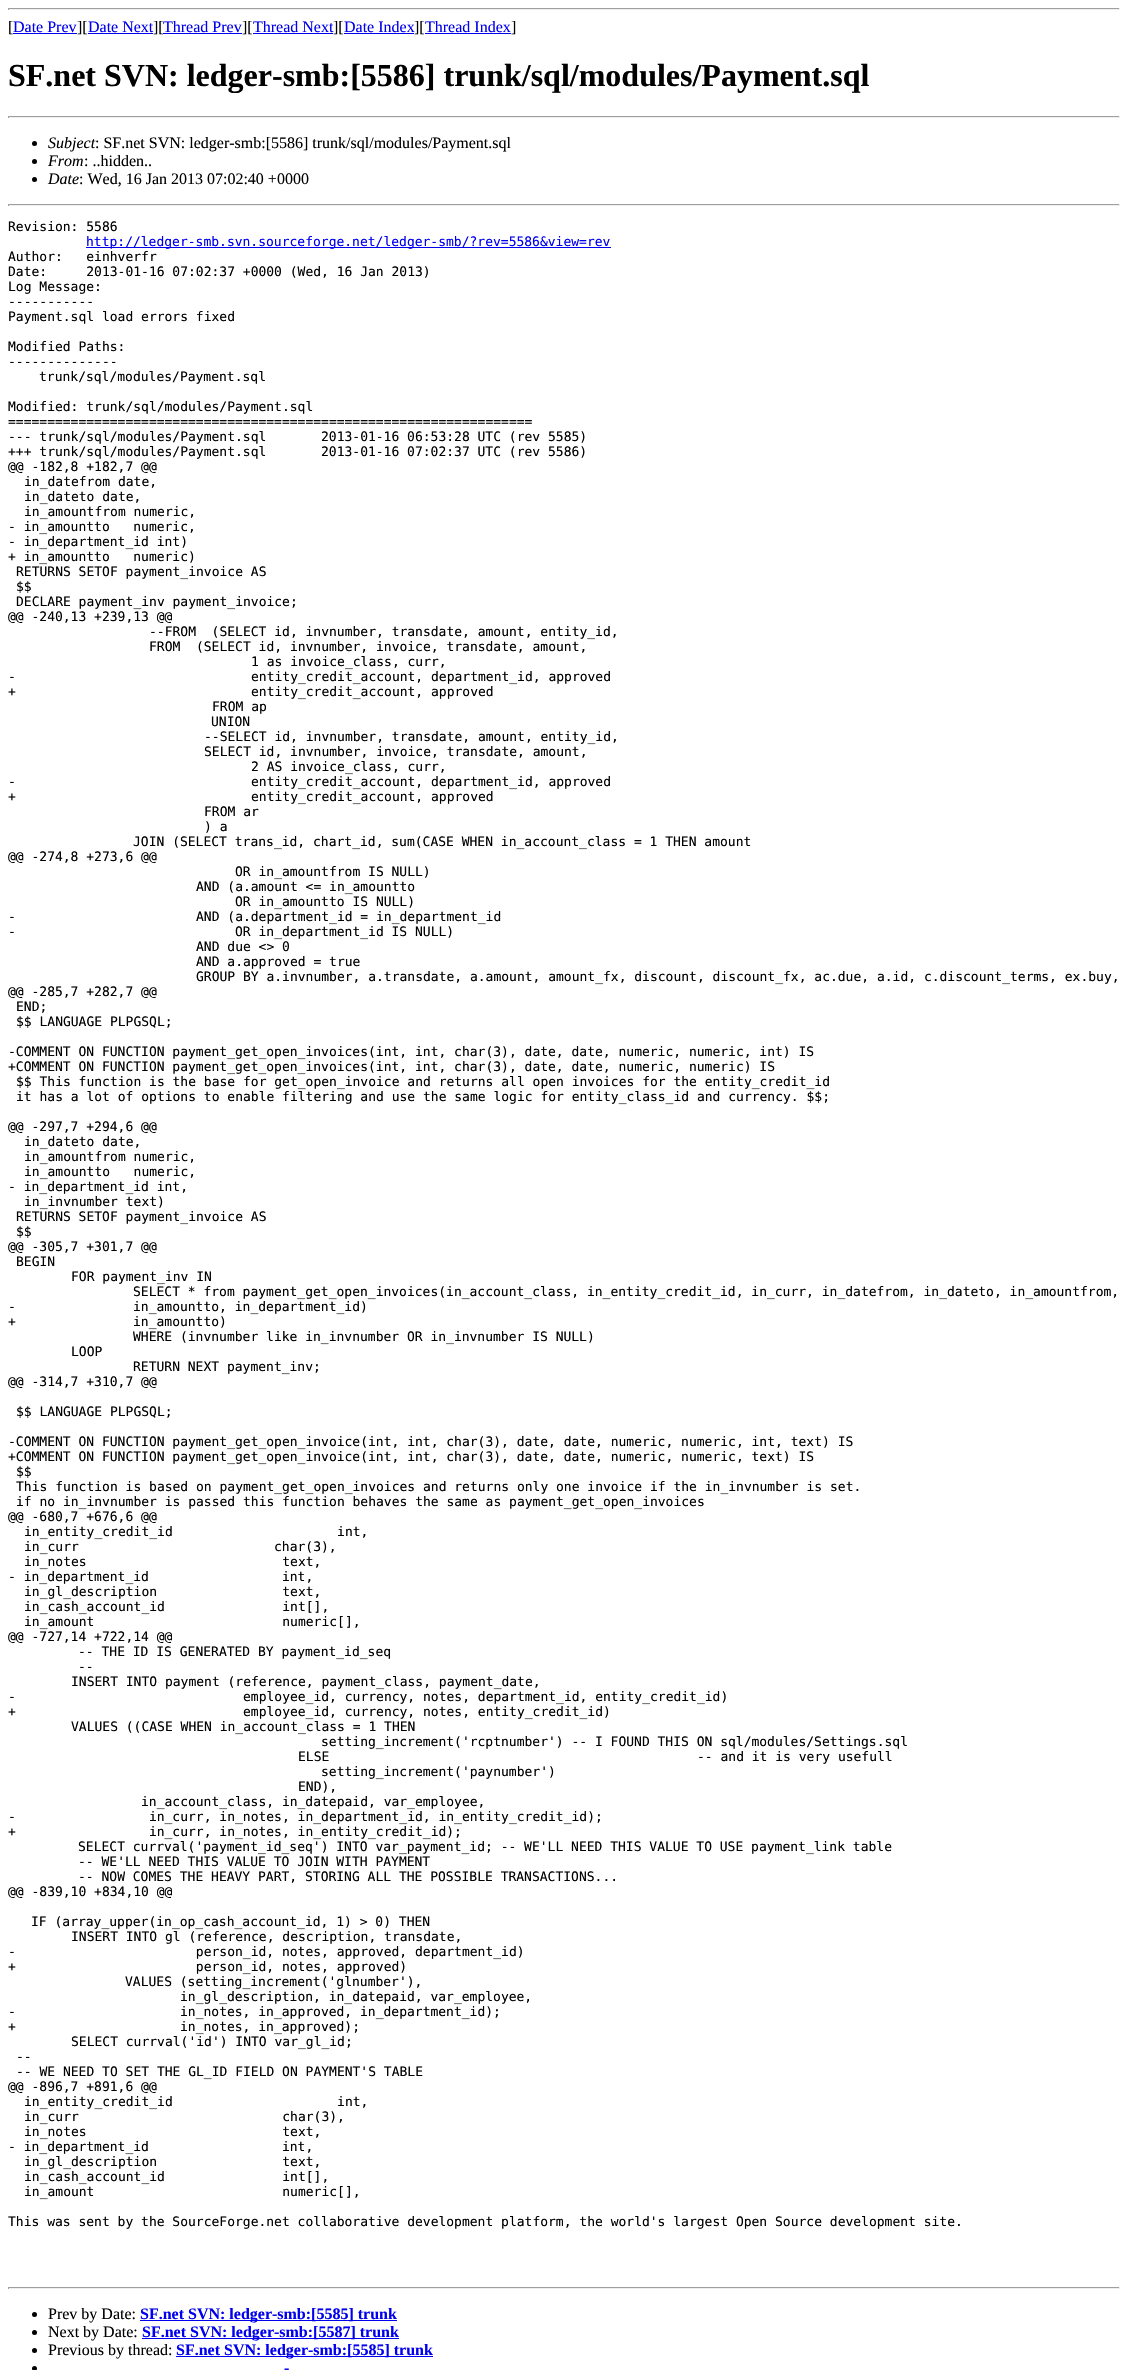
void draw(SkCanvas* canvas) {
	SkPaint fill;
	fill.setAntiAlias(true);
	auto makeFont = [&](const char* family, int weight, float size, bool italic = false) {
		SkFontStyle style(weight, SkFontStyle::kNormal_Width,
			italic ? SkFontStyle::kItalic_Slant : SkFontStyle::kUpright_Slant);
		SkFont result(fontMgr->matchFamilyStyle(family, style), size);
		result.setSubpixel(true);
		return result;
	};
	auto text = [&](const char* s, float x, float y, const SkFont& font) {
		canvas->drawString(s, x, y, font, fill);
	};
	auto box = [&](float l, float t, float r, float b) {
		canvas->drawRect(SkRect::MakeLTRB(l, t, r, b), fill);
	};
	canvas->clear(0xFFFFFFFF);
	fill.setColor(0xFF9F9F9F);
	box(8, 8, 1120, 9);
	fill.setColor(0xFFEEEEEE);
	box(1119, 8, 1120, 10);
	box(8, 9, 1120, 10);
	fill.setColor(0xFF9F9F9F);
	box(8, 8, 9, 10);
	fill.setColor(0xFF0000EE);
	box(13, 33, 77, 34);
	box(88, 33, 153, 34);
	box(163, 33, 242, 34);
	box(253, 33, 333, 34);
	box(344, 33, 414, 34);
	box(425, 33, 511, 34);
	fill.setColor(0xFF9F9F9F);
	box(8, 116, 1120, 117);
	fill.setColor(0xFFEEEEEE);
	box(1119, 116, 1120, 118);
	box(8, 117, 1120, 118);
	fill.setColor(0xFF9F9F9F);
	box(8, 116, 9, 118);
	fill.setColor(0xFF000000);
	canvas->drawCircle(34.5f, 143.5f, 2.5f, fill);
	canvas->drawCircle(34.5f, 161.5f, 2.5f, fill);
	canvas->drawCircle(34.5f, 179.5f, 2.5f, fill);
	fill.setColor(0xFF9F9F9F);
	box(8, 204, 1120, 205);
	fill.setColor(0xFFEEEEEE);
	box(1119, 204, 1120, 206);
	box(8, 205, 1120, 206);
	fill.setColor(0xFF9F9F9F);
	box(8, 204, 9, 206);
	fill.setColor(0xFF0000EE);
	box(86, 247, 611, 248);
	fill.setColor(0xFF9F9F9F);
	box(8, 2287, 1120, 2288);
	fill.setColor(0xFFEEEEEE);
	box(1119, 2287, 1120, 2289);
	box(8, 2288, 1120, 2289);
	fill.setColor(0xFF9F9F9F);
	box(8, 2287, 9, 2289);
	fill.setColor(0xFF000000);
	canvas->drawCircle(34.5f, 2314.5f, 2.5f, fill);
	fill.setColor(0xFF0000EE);
	box(140, 2320, 397, 2321);
	fill.setColor(0xFF000000);
	canvas->drawCircle(34.5f, 2332.5f, 2.5f, fill);
	fill.setColor(0xFF0000EE);
	box(142, 2338, 399, 2339);
	fill.setColor(0xFF000000);
	canvas->drawCircle(34.5f, 2350.5f, 2.5f, fill);
	fill.setColor(0xFF0000EE);
	box(176, 2356, 433, 2357);
	fill.setColor(0xFF000000);
	canvas->drawCircle(34.5f, 2368.5f, 2.5f, fill);
	auto font1 = makeFont("Liberation Serif", 400, 16);
	text("[", 8, 32, font1);
	fill.setColor(0xFF0000EE);
	text("Date Prev", 13, 32, font1);
	fill.setColor(0xFF000000);
	text("][", 77, 32, font1);
	fill.setColor(0xFF0000EE);
	text("Date Next", 88, 32, font1);
	fill.setColor(0xFF000000);
	text("][", 153, 32, font1);
	fill.setColor(0xFF0000EE);
	text("Thread Prev", 163, 32, font1);
	fill.setColor(0xFF000000);
	text("][", 242, 32, font1);
	fill.setColor(0xFF0000EE);
	text("Thread Next", 253, 32, font1);
	fill.setColor(0xFF000000);
	text("][", 333, 32, font1);
	fill.setColor(0xFF0000EE);
	text("Date Index", 344, 32, font1);
	fill.setColor(0xFF000000);
	text("][", 414, 32, font1);
	fill.setColor(0xFF0000EE);
	text("Thread Index", 425, 32, font1);
	fill.setColor(0xFF000000);
	text("]", 511, 32, font1);
	auto font2 = makeFont("Liberation Serif", 700, 32);
	text("SF.net SVN: ledger-smb:[5586] trunk/sql/modules/Payment.sql", 8, 86, font2);
	auto font3 = makeFont("Liberation Serif", 400, 16, true);
	text("Subject", 48, 148, font3);
	text(": SF.net SVN: ledger-smb:[5586] trunk/sql/modules/Payment.sql", 95, 148, font1);
	text("From", 48, 166, font3);
	text(": ..hidden..", 84, 166, font1);
	text("Date", 48, 184, font3);
	text(": Wed, 16 Jan 2013 07:02:40 +0000", 79, 184, font1);
	auto font4 = makeFont("DejaVu Sans Mono", 400, 13);
	text("Revision: 5586", 8, 231, font4);
	fill.setColor(0xFF0000EE);
	text("http://ledger-smb.svn.sourceforge.net/ledger-smb/?rev=5586&view=rev", 86, 246, font4);
	fill.setColor(0xFF000000);
	text("Author:   einhverfr", 8, 261, font4);
	text("Date:     2013-01-16 07:02:37 +0000 (Wed, 16 Jan 2013)", 8, 276, font4);
	text("Log Message:", 8, 291, font4);
	text("-----------", 8, 306, font4);
	text("Payment.sql load errors fixed", 8, 321, font4);
	text("Modified Paths:", 8, 351, font4);
	text("--------------", 8, 366, font4);
	text("trunk/sql/modules/Payment.sql", 39, 381, font4);
	text("Modified: trunk/sql/modules/Payment.sql", 8, 411, font4);
	text("===================================================================", 8, 426, font4);
	text("--- trunk/sql/modules/Payment.sql", 8, 441, font4);
	text("2013-01-16 06:53:28 UTC (rev 5585)", 321, 441, font4);
	text("+++ trunk/sql/modules/Payment.sql", 8, 456, font4);
	text("2013-01-16 07:02:37 UTC (rev 5586)", 321, 456, font4);
	text("@@ -182,8 +182,7 @@", 8, 471, font4);
	text("in_datefrom date,", 24, 486, font4);
	text("in_dateto date,", 24, 501, font4);
	text("in_amountfrom numeric,", 24, 516, font4);
	text("- in_amountto   numeric,", 8, 531, font4);
	text("- in_department_id int)", 8, 546, font4);
	text("+ in_amountto   numeric)", 8, 561, font4);
	text("RETURNS SETOF payment_invoice AS", 16, 576, font4);
	text("$$", 16, 591, font4);
	text("DECLARE payment_inv payment_invoice;", 16, 606, font4);
	text("@@ -240,13 +239,13 @@", 8, 621, font4);
	text("--FROM  (SELECT id, invnumber, transdate, amount, entity_id,", 149, 636, font4);
	text("FROM  (SELECT id, invnumber, invoice, transdate, amount,", 149, 651, font4);
	text("1 as invoice_class, curr,", 251, 666, font4);
	text("-", 8, 681, font4);
	text("entity_credit_account, department_id, approved", 251, 681, font4);
	text("+", 8, 696, font4);
	text("entity_credit_account, approved", 251, 696, font4);
	text("FROM ap", 212, 711, font4);
	text("UNION", 211, 726, font4);
	text("--SELECT id, invnumber, transdate, amount, entity_id,", 204, 741, font4);
	text("SELECT id, invnumber, invoice, transdate, amount,", 204, 756, font4);
	text("2 AS invoice_class, curr,", 251, 771, font4);
	text("-", 8, 786, font4);
	text("entity_credit_account, department_id, approved", 251, 786, font4);
	text("+", 8, 801, font4);
	text("entity_credit_account, approved", 251, 801, font4);
	text("FROM ar", 204, 816, font4);
	text(") a", 204, 831, font4);
	text("JOIN (SELECT trans_id, chart_id, sum(CASE WHEN in_account_class = 1 THEN amount", 133, 846, font4);
	text("@@ -274,8 +273,6 @@", 8, 861, font4);
	text("OR in_amountfrom IS NULL)", 235, 876, font4);
	text("AND (a.amount <= in_amountto", 196, 891, font4);
	text("OR in_amountto IS NULL)", 235, 906, font4);
	text("-", 8, 921, font4);
	text("AND (a.department_id = in_department_id", 196, 921, font4);
	text("-", 8, 936, font4);
	text("OR in_department_id IS NULL)", 235, 936, font4);
	text("AND due <> 0", 196, 951, font4);
	text("AND a.approved = true", 196, 966, font4);
	text("GROUP BY a.invnumber, a.transdate, a.amount, amount_fx, discount, discount_fx, ac.due, a.id, c.discount_terms, ex.buy,", 196, 981, font4);
	text("@@ -285,7 +282,7 @@", 8, 996, font4);
	text("END;", 16, 1011, font4);
	text("$$ LANGUAGE PLPGSQL;", 16, 1026, font4);
	text("-COMMENT ON FUNCTION payment_get_open_invoices(int, int, char(3), date, date, numeric, numeric, int) IS", 8, 1056, font4);
	text("+COMMENT ON FUNCTION payment_get_open_invoices(int, int, char(3), date, date, numeric, numeric) IS", 8, 1071, font4);
	text("$$ This function is the base for get_open_invoice and returns all open invoices for the entity_credit_id", 16, 1086, font4);
	text("it has a lot of options to enable filtering and use the same logic for entity_class_id and currency. $$;", 16, 1101, font4);
	text("@@ -297,7 +294,6 @@", 8, 1131, font4);
	text("in_dateto date,", 24, 1146, font4);
	text("in_amountfrom numeric,", 24, 1161, font4);
	text("in_amountto   numeric,", 24, 1176, font4);
	text("- in_department_id int,", 8, 1191, font4);
	text("in_invnumber text)", 24, 1206, font4);
	text("RETURNS SETOF payment_invoice AS", 16, 1221, font4);
	text("$$", 16, 1236, font4);
	text("@@ -305,7 +301,7 @@", 8, 1251, font4);
	text("BEGIN", 16, 1266, font4);
	text("FOR payment_inv IN", 71, 1281, font4);
	text("SELECT * from payment_get_open_invoices(in_account_class, in_entity_credit_id, in_curr, in_datefrom, in_dateto, in_amountfrom,", 133, 1296, font4);
	text("-", 8, 1311, font4);
	text("in_amountto, in_department_id)", 133, 1311, font4);
	text("+", 8, 1326, font4);
	text("in_amountto)", 133, 1326, font4);
	text("WHERE (invnumber like in_invnumber OR in_invnumber IS NULL)", 133, 1341, font4);
	text("LOOP", 71, 1356, font4);
	text("RETURN NEXT payment_inv;", 133, 1371, font4);
	text("@@ -314,7 +310,7 @@", 8, 1386, font4);
	text("$$ LANGUAGE PLPGSQL;", 16, 1416, font4);
	text("-COMMENT ON FUNCTION payment_get_open_invoice(int, int, char(3), date, date, numeric, numeric, int, text) IS", 8, 1446, font4);
	text("+COMMENT ON FUNCTION payment_get_open_invoice(int, int, char(3), date, date, numeric, numeric, text) IS", 8, 1461, font4);
	text("$$", 16, 1476, font4);
	text("This function is based on payment_get_open_invoices and returns only one invoice if the in_invnumber is set.", 16, 1491, font4);
	text("if no in_invnumber is passed this function behaves the same as payment_get_open_invoices", 16, 1506, font4);
	text("@@ -680,7 +676,6 @@", 8, 1521, font4);
	text("in_entity_credit_id                     int,", 24, 1536, font4);
	text("in_curr", 24, 1551, font4);
	text("char(3),", 274, 1551, font4);
	text("in_notes                         text,", 24, 1566, font4);
	text("- in_department_id                 int,", 8, 1581, font4);
	text("in_gl_description                text,", 24, 1596, font4);
	text("in_cash_account_id               int[],", 24, 1611, font4);
	text("in_amount                        numeric[],", 24, 1626, font4);
	text("@@ -727,14 +722,14 @@", 8, 1641, font4);
	text("-- THE ID IS GENERATED BY payment_id_seq", 78, 1656, font4);
	text("--", 78, 1671, font4);
	text("INSERT INTO payment (reference, payment_class, payment_date,", 71, 1686, font4);
	text("-", 8, 1701, font4);
	text("employee_id, currency, notes, department_id, entity_credit_id)", 243, 1701, font4);
	text("+", 8, 1716, font4);
	text("employee_id, currency, notes, entity_credit_id)", 243, 1716, font4);
	text("VALUES ((CASE WHEN in_account_class = 1 THEN", 71, 1731, font4);
	text("setting_increment('rcptnumber') -- I FOUND THIS ON sql/modules/Settings.sql", 321, 1746, font4);
	text("ELSE", 298, 1761, font4);
	text("-- and it is very usefull", 697, 1761, font4);
	text("setting_increment('paynumber')", 321, 1776, font4);
	text("END),", 298, 1791, font4);
	text("in_account_class, in_datepaid, var_employee,", 141, 1806, font4);
	text("-                 in_curr, in_notes, in_department_id, in_entity_credit_id);", 8, 1821, font4);
	text("+                 in_curr, in_notes, in_entity_credit_id);", 8, 1836, font4);
	text("SELECT currval('payment_id_seq') INTO var_payment_id; -- WE'LL NEED THIS VALUE TO USE payment_link table", 78, 1851, font4);
	text("-- WE'LL NEED THIS VALUE TO JOIN WITH PAYMENT", 78, 1866, font4);
	text("-- NOW COMES THE HEAVY PART, STORING ALL THE POSSIBLE TRANSACTIONS...", 78, 1881, font4);
	text("@@ -839,10 +834,10 @@", 8, 1896, font4);
	text("IF (array_upper(in_op_cash_account_id, 1) > 0) THEN", 31, 1926, font4);
	text("INSERT INTO gl (reference, description, transdate,", 71, 1941, font4);
	text("-                       person_id, notes, approved, department_id)", 8, 1956, font4);
	text("+                       person_id, notes, approved)", 8, 1971, font4);
	text("VALUES (setting_increment('glnumber'),", 125, 1986, font4);
	text("in_gl_description, in_datepaid, var_employee,", 180, 2001, font4);
	text("-", 8, 2016, font4);
	text("in_notes, in_approved, in_department_id);", 180, 2016, font4);
	text("+", 8, 2031, font4);
	text("in_notes, in_approved);", 180, 2031, font4);
	text("SELECT currval('id') INTO var_gl_id;", 71, 2046, font4);
	text("--", 16, 2061, font4);
	text("-- WE NEED TO SET THE GL_ID FIELD ON PAYMENT'S TABLE", 16, 2076, font4);
	text("@@ -896,7 +891,6 @@", 8, 2091, font4);
	text("in_entity_credit_id                     int,", 24, 2106, font4);
	text("in_curr                          char(3),", 24, 2121, font4);
	text("in_notes                         text,", 24, 2136, font4);
	text("- in_department_id                 int,", 8, 2151, font4);
	text("in_gl_description                text,", 24, 2166, font4);
	text("in_cash_account_id               int[],", 24, 2181, font4);
	text("in_amount                        numeric[],", 24, 2196, font4);
	text("This was sent by the SourceForge.net collaborative development platform, the world's largest Open Source development site.", 8, 2226, font4);
	text("Prev by Date:", 48, 2319, font1);
	auto font5 = makeFont("Liberation Serif", 700, 16);
	fill.setColor(0xFF0000EE);
	text("SF.net SVN: ledger-smb:[5585] trunk", 140, 2319, font5);
	fill.setColor(0xFF000000);
	text("Next by Date:", 48, 2337, font1);
	fill.setColor(0xFF0000EE);
	text("SF.net SVN: ledger-smb:[5587] trunk", 142, 2337, font5);
	fill.setColor(0xFF000000);
	text("Previous by thread:", 48, 2355, font1);
	fill.setColor(0xFF0000EE);
	text("SF.net SVN: ledger-smb:[5585] trunk", 176, 2355, font5);
	text("-", 284, 2373, font5);
}
